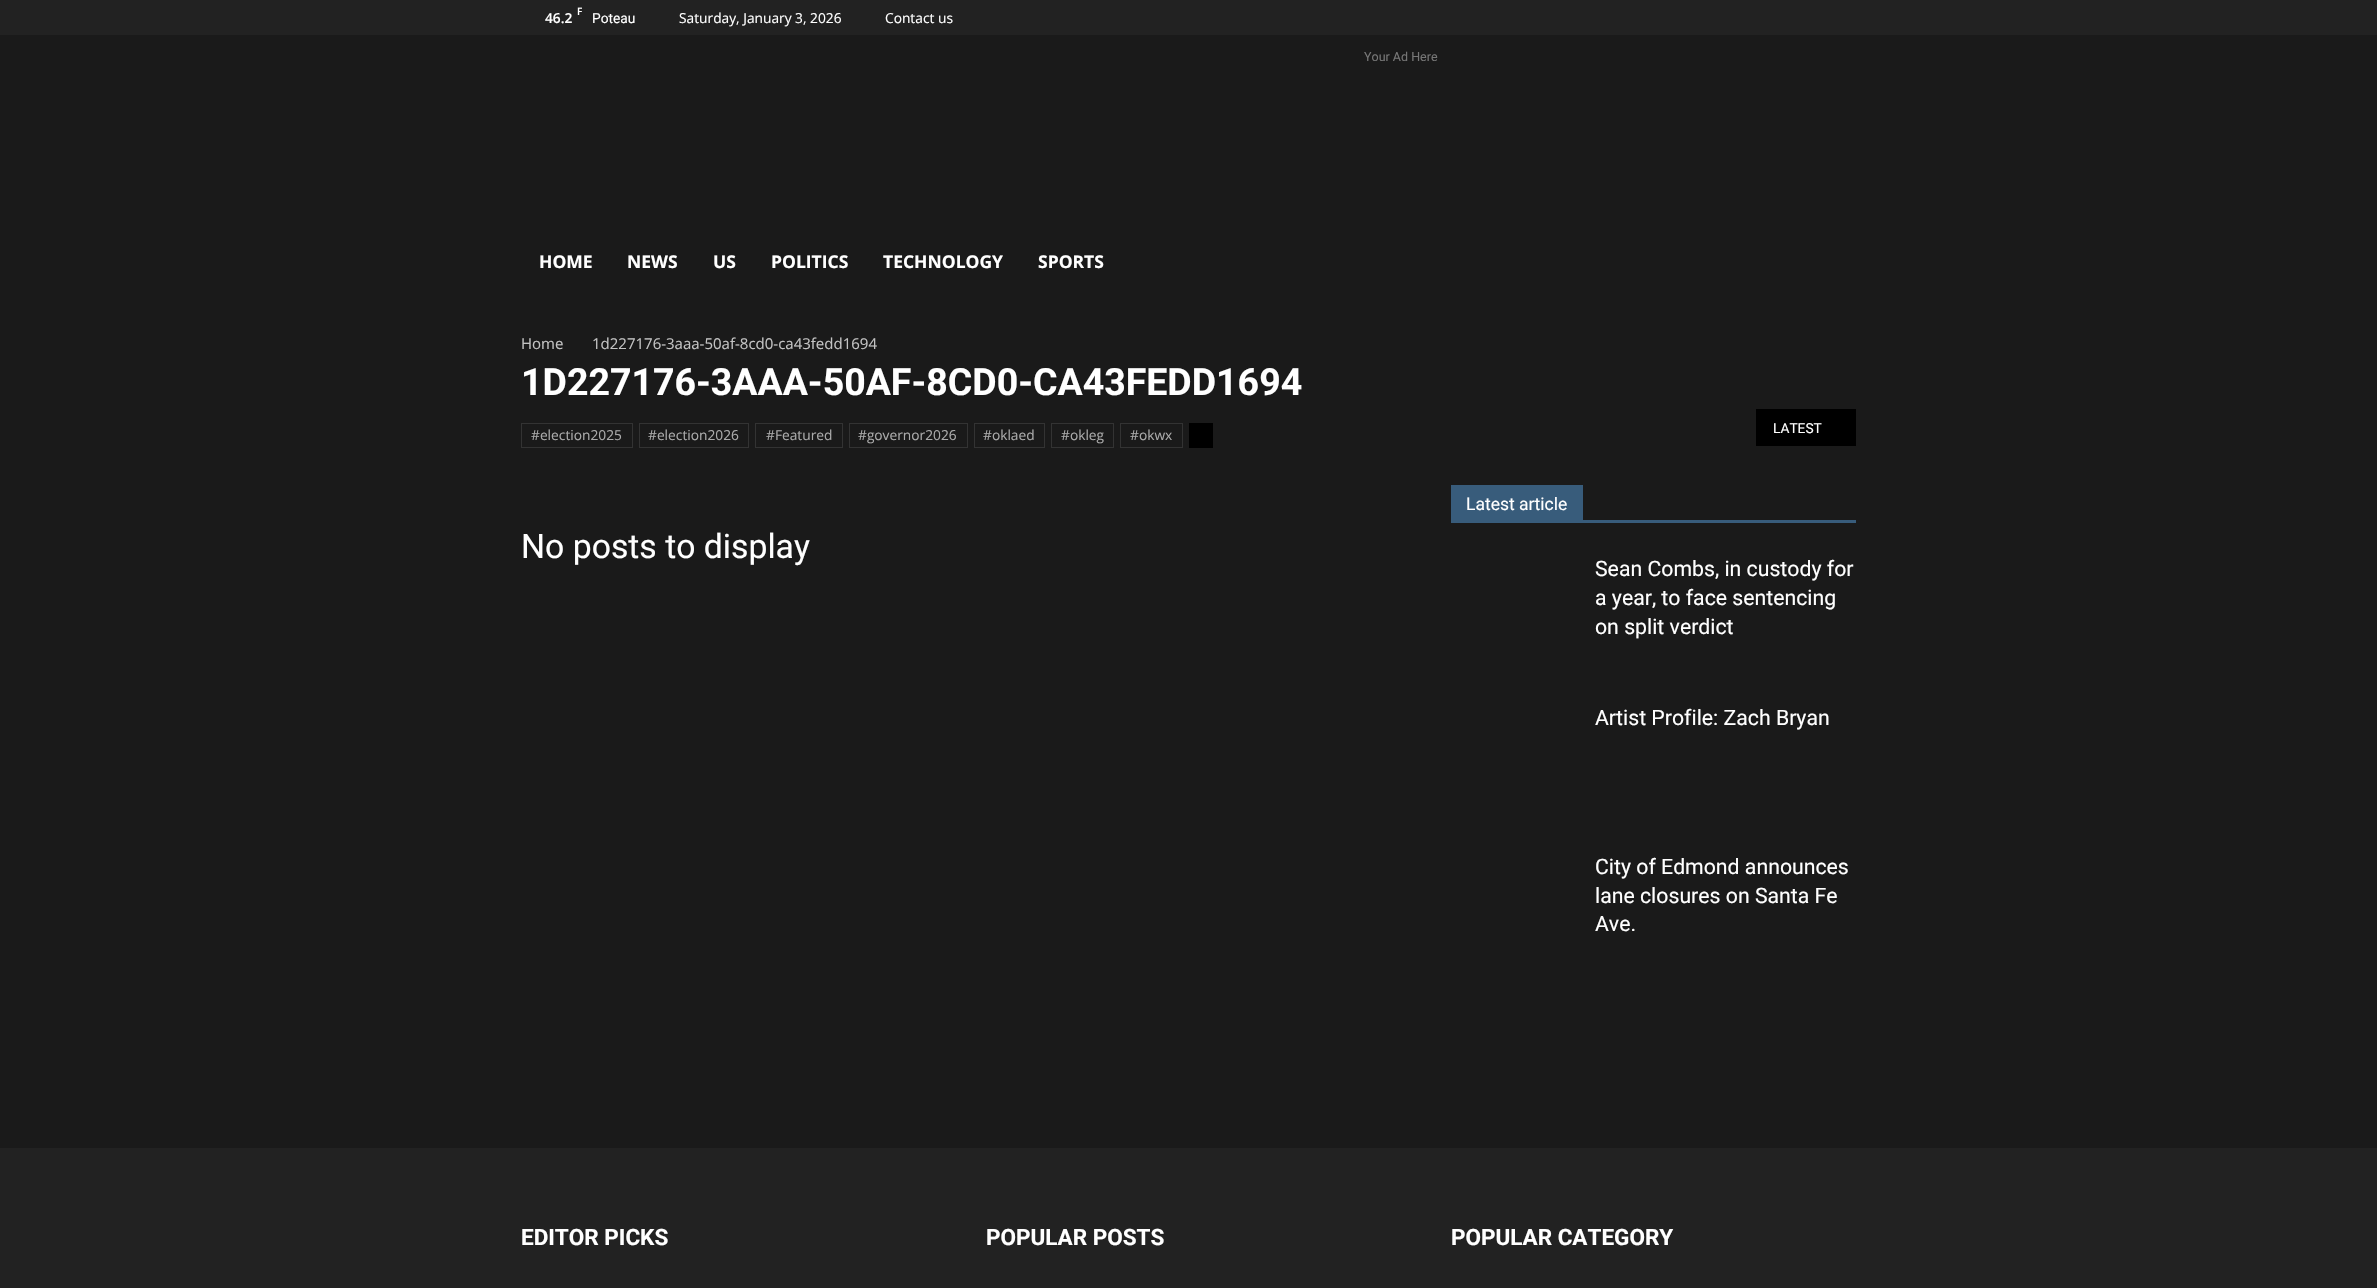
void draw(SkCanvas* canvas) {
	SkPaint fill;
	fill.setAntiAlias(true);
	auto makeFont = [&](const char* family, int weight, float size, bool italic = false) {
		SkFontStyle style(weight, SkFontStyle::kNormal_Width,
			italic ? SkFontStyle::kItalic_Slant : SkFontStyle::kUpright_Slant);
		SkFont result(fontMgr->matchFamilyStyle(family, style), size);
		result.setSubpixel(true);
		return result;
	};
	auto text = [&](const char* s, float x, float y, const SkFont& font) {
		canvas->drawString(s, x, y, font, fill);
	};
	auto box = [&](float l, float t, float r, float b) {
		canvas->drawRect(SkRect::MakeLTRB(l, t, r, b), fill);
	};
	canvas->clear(0xFF1A1A1A);
	fill.setColor(0xFF222222);
	box(0, 0, 2377, 35);
	fill.setStyle(SkPaint::kStroke_Style);
	fill.setStrokeWidth(1);
	fill.setColor(0xFF333333);
	canvas->drawRect(SkRect::MakeLTRB(521.5f, 423.5f, 632.5f, 447.5f), fill);
	canvas->drawRect(SkRect::MakeLTRB(639.5f, 423.5f, 748.5f, 447.5f), fill);
	canvas->drawRect(SkRect::MakeLTRB(755.5f, 423.5f, 842.5f, 447.5f), fill);
	canvas->drawRect(SkRect::MakeLTRB(849.5f, 423.5f, 967.5f, 447.5f), fill);
	canvas->drawRect(SkRect::MakeLTRB(974.5f, 423.5f, 1044.5f, 447.5f), fill);
	canvas->drawRect(SkRect::MakeLTRB(1051.5f, 423.5f, 1113.5f, 447.5f), fill);
	canvas->drawRect(SkRect::MakeLTRB(1120.5f, 423.5f, 1182.5f, 447.5f), fill);
	fill.setStyle(SkPaint::kFill_Style);
	fill.setColor(0xFF000000);
	box(1189, 423, 1213, 448);
	box(1756, 409, 1856, 446);
	fill.setColor(0xFF385C7B);
	box(1451, 520, 1856, 523);
	box(1451, 485, 1583, 520);
	fill.setColor(0xFF222222);
	box(0, 1148, 2377, 1288);
	auto font1 = makeFont("Open Sans", 600, 10);
	fill.setColor(0xFFFFFFFF);
	text("F", 577, 15, font1);
	auto font2 = makeFont("Open Sans", 600, 13.75f);
	text("46.2", 545, 23, font2);
	auto font3 = makeFont("Roboto", 400, 13.75f);
	text("Poteau", 592, 23, font3);
	auto font4 = makeFont("Open Sans", 400, 13.75f);
	text("Saturday, January 3, 2026", 679, 23, font4);
	text("Contact us", 885, 23, font4);
	auto font5 = makeFont("Roboto", 400, 12.5f);
	fill.setColor(0xFF767676);
	text("Your Ad Here", 1364, 61, font5);
	auto font6 = makeFont("Open Sans", 700, 17.5f);
	fill.setColor(0xFFFFFFFF);
	text("HOME", 539, 268, font6);
	text("NEWS", 627, 268, font6);
	text("US", 713, 268, font6);
	text("POLITICS", 771, 268, font6);
	text("TECHNOLOGY", 883, 268, font6);
	text("SPORTS", 1038, 268, font6);
	auto font7 = makeFont("Open Sans", 400, 15);
	fill.setColor(0xFFC3C3C3);
	text("Home", 521, 349, font7);
	text("1d227176-3aaa-50af-8cd0-ca43fedd1694", 592, 349, font7);
	auto font8 = makeFont("Roboto", 700, 37.5f);
	fill.setColor(0xFFFFFFFF);
	text("1D227176-3AAA-50AF-8CD0-CA43FEDD1694", 521, 395, font8);
	fill.setColor(0xFFAAAAAA);
	text("#election2025", 531, 440, font4);
	text("#election2026", 648, 440, font4);
	text("#Featured", 766, 440, font4);
	text("#governor2026", 858, 440, font4);
	text("#oklaed", 983, 440, font4);
	text("#okleg", 1061, 440, font4);
	text("#okwx", 1130, 440, font4);
	fill.setColor(0xFFFFFFFF);
	text("LATEST", 1773, 433, font3);
	auto font9 = makeFont("Roboto", 400, 33.75f);
	text("No posts to display", 521, 558, font9);
	auto font10 = makeFont("Roboto", 400, 17.5f);
	text("Latest article", 1466, 510, font10);
	auto font11 = makeFont("Roboto", 400, 21.25f);
	text("Sean Combs, in custody for", 1595, 576, font11);
	text("a year, to face sentencing", 1595, 605, font11);
	text("on split verdict", 1595, 634, font11);
	text("Artist Profile: Zach Bryan", 1595, 725, font11);
	text("City of Edmond announces", 1595, 874, font11);
	text("lane closures on Santa Fe", 1595, 903, font11);
	text("Ave.", 1595, 931, font11);
	auto font12 = makeFont("Roboto", 700, 22.5f);
	text("EDITOR PICKS", 521, 1245, font12);
	text("POPULAR POSTS", 986, 1245, font12);
	text("POPULAR CATEGORY", 1451, 1245, font12);
}
